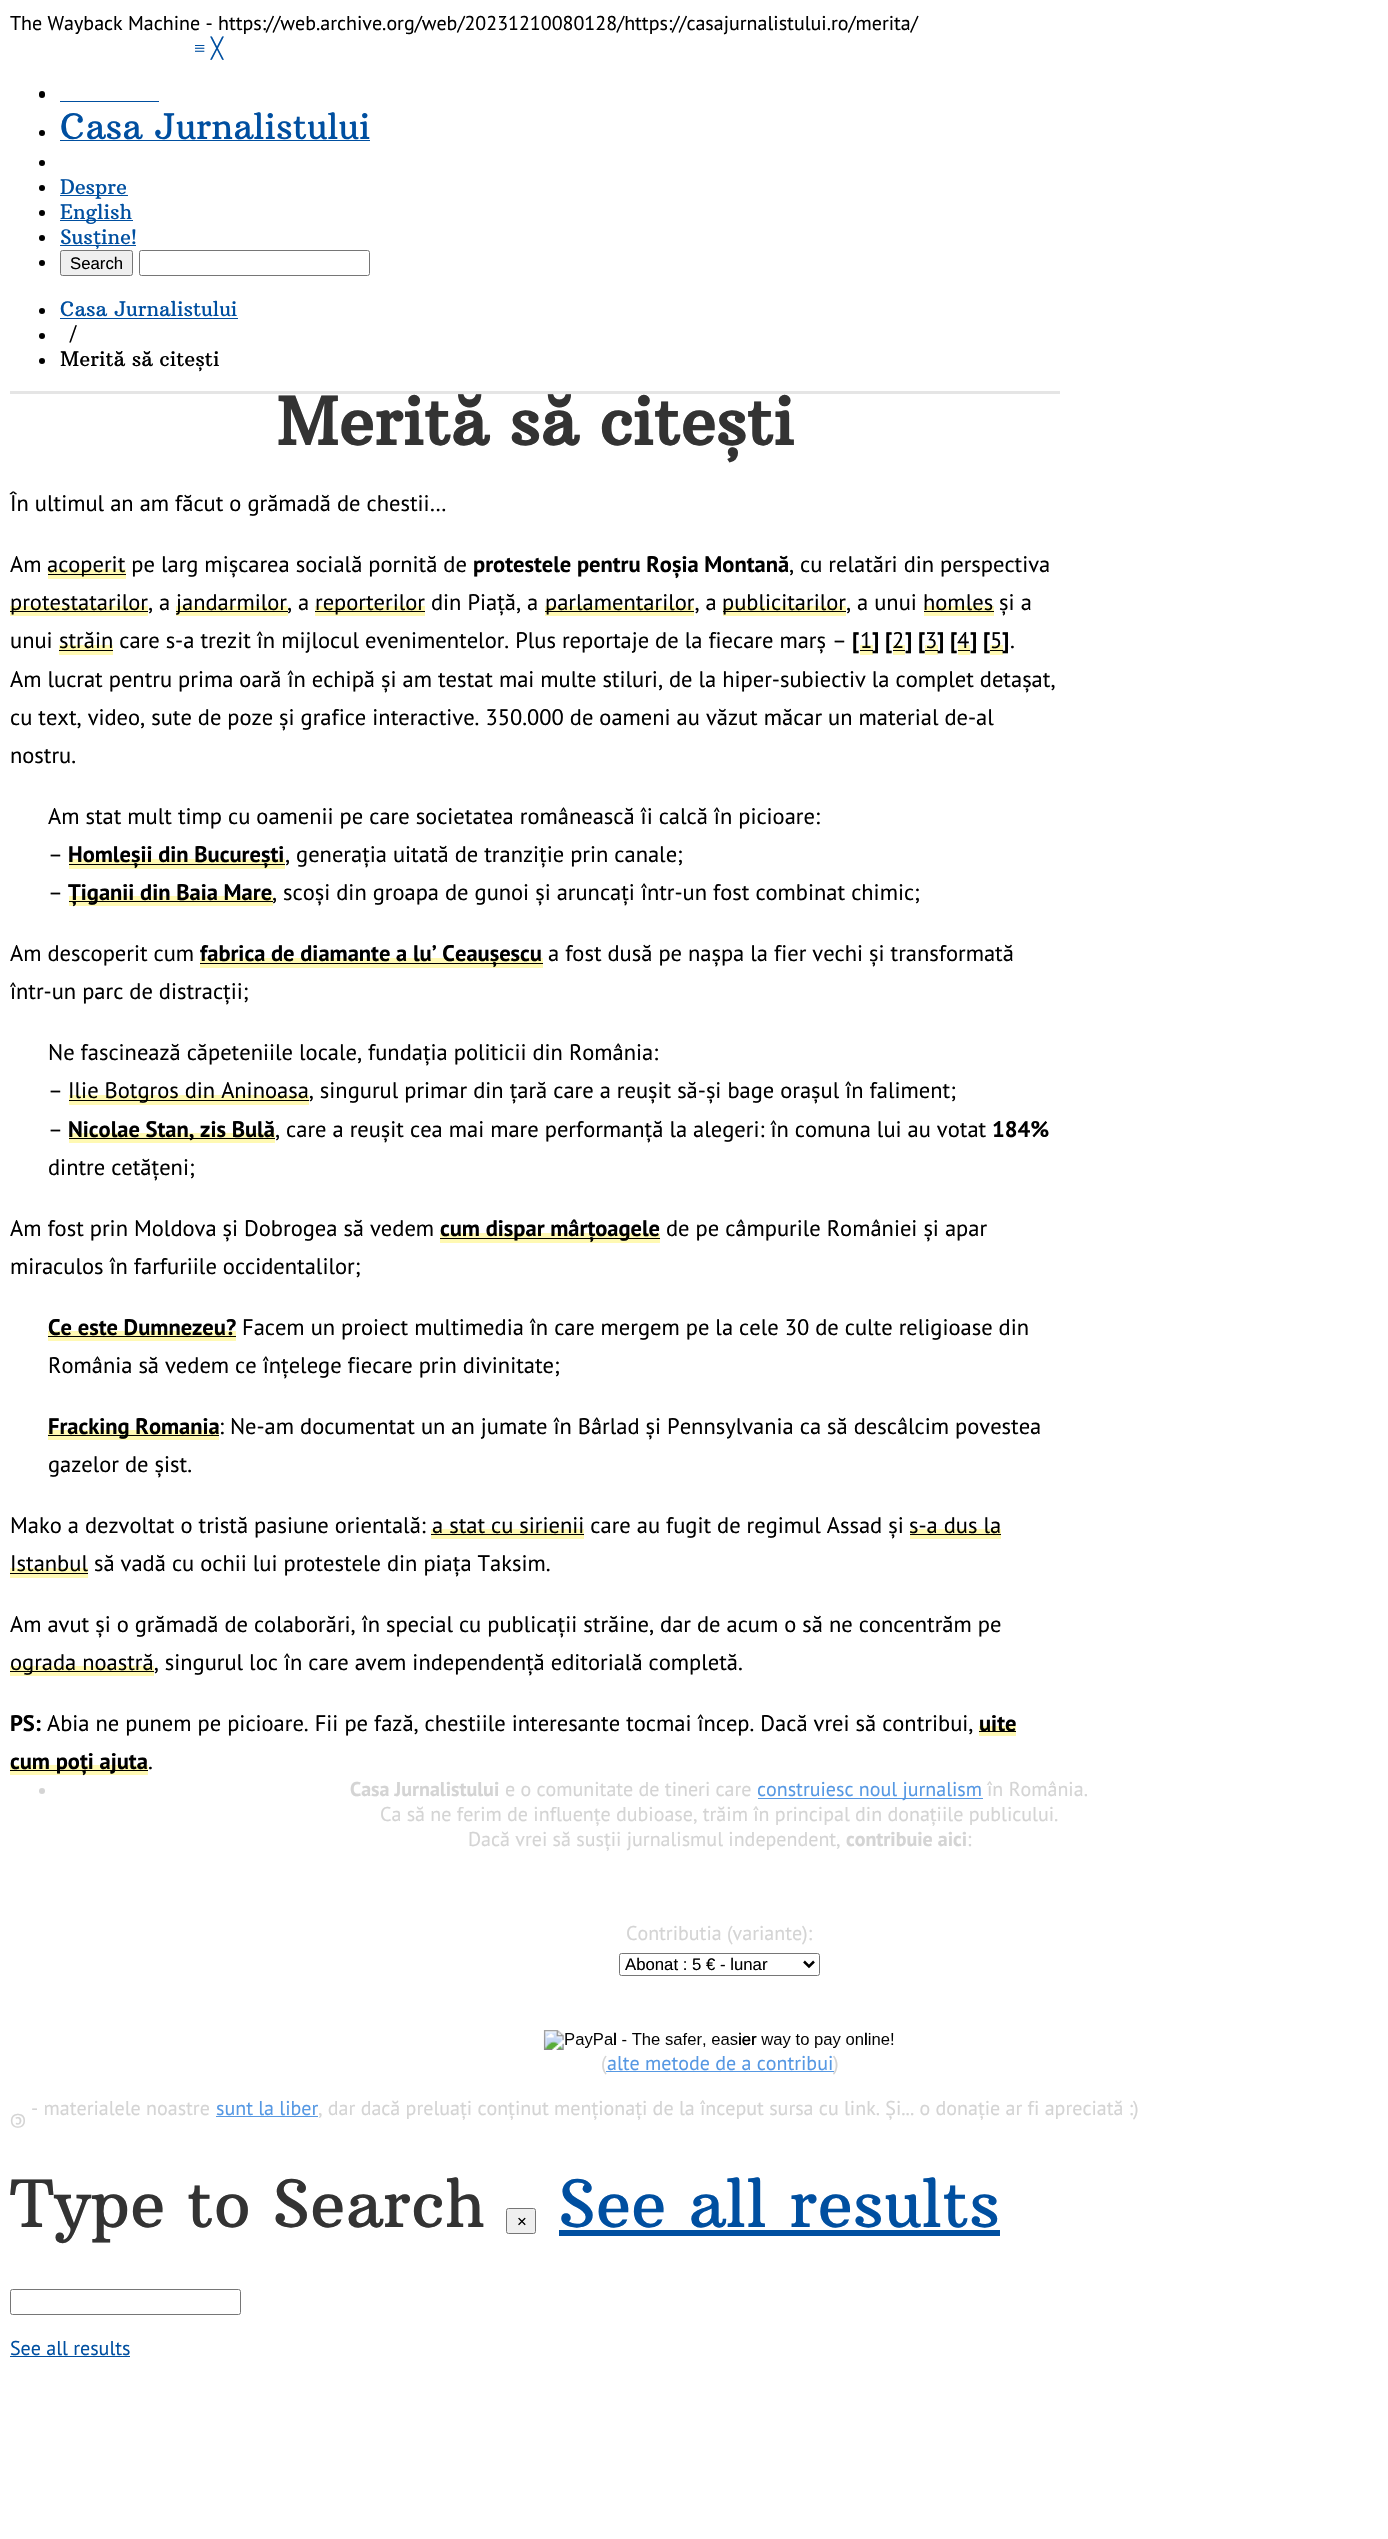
void draw(SkCanvas* canvas) {
	SkPaint fill;
	fill.setAntiAlias(true);
	auto makeFont = [&](const char* family, int weight, float size, bool italic = false) {
		SkFontStyle style(weight, SkFontStyle::kNormal_Width,
			italic ? SkFontStyle::kItalic_Slant : SkFontStyle::kUpright_Slant);
		SkFont result(fontMgr->matchFamilyStyle(family, style), size);
		result.setSubpixel(true);
		return result;
	};
	auto text = [&](const char* s, float x, float y, const SkFont& font) {
		canvas->drawString(s, x, y, font, fill);
	};
	auto box = [&](float l, float t, float r, float b) {
		canvas->drawRect(SkRect::MakeLTRB(l, t, r, b), fill);
	};
	auto roundBox = [&](float l, float t, float r, float b, float radius) {
		canvas->drawRoundRect(SkRect::MakeLTRB(l, t, r, b), radius, radius, fill);
	};
	auto picture = [&](const char* path, float l, float t, float r, float b) {
		auto image = SkImages::DeferredFromEncodedData(SkData::MakeFromFileName(path));
		canvas->drawImageRect(image, SkRect::MakeLTRB(l, t, r, b), SkSamplingOptions());
	};
	canvas->clear(0xFFFFFFFF);
	fill.setColor(0xFF000000);
	roundBox(39, 91, 45, 98, 3);
	fill.setColor(0xFF004FA0);
	box(60, 101, 159, 102);
	fill.setColor(0xFF000000);
	canvas->drawCircle(42, 133, 3, fill);
	fill.setColor(0xFF004FA0);
	box(60, 140, 370, 141);
	fill.setColor(0xFF000000);
	canvas->drawCircle(42, 163, 3, fill);
	canvas->drawCircle(42, 188, 3, fill);
	fill.setColor(0xFF004FA0);
	box(60, 195, 128, 196);
	fill.setColor(0xFF000000);
	canvas->drawCircle(42, 213, 3, fill);
	fill.setColor(0xFF004FA0);
	box(60, 220, 133, 221);
	fill.setColor(0xFF000000);
	canvas->drawCircle(42, 238, 3, fill);
	fill.setColor(0xFF004FA0);
	box(60, 245, 136, 246);
	fill.setColor(0xFF000000);
	canvas->drawCircle(42, 263, 3, fill);
	fill.setColor(0xFFEFEFEF);
	canvas->drawRoundRect(SkRect::MakeLTRB(60.5f, 250.5f, 132.5f, 275.5f), 2, 2, fill);
	fill.setStyle(SkPaint::kStroke_Style);
	fill.setStrokeWidth(1);
	fill.setColor(0xFF767676);
	canvas->drawRoundRect(SkRect::MakeLTRB(60.5f, 250.5f, 132.5f, 275.5f), 2, 2, fill);
	canvas->drawRoundRect(SkRect::MakeLTRB(139.5f, 250.5f, 369.5f, 275.5f), 2, 2, fill);
	fill.setStyle(SkPaint::kFill_Style);
	fill.setColor(0xFFE5E5E5);
	box(10, 391, 1060, 394);
	fill.setColor(0xFF000000);
	canvas->drawCircle(42, 311, 3, fill);
	fill.setColor(0xFF004FA0);
	box(60, 318, 238, 319);
	fill.setColor(0xFF000000);
	canvas->drawCircle(42, 336, 3, fill);
	canvas->drawCircle(42, 361, 3, fill);
	fill.setColor(0xFFFFF9B3);
	box(48, 569, 126, 579);
	fill.setColor(0xFF000000);
	box(48, 574, 126, 575);
	fill.setColor(0xFFFFF9B3);
	box(10, 606, 148, 616);
	fill.setColor(0xFF000000);
	box(10, 611, 148, 612);
	fill.setColor(0xFFFFF9B3);
	box(176, 606, 288, 616);
	fill.setColor(0xFF000000);
	box(176, 611, 288, 612);
	fill.setColor(0xFFFFF9B3);
	box(315, 606, 425, 616);
	fill.setColor(0xFF000000);
	box(315, 611, 425, 612);
	fill.setColor(0xFFFFF9B3);
	box(545, 606, 694, 616);
	fill.setColor(0xFF000000);
	box(545, 611, 694, 612);
	fill.setColor(0xFFFFF9B3);
	box(723, 606, 846, 616);
	fill.setColor(0xFF000000);
	box(723, 611, 846, 612);
	fill.setColor(0xFFFFF9B3);
	box(924, 606, 994, 616);
	fill.setColor(0xFF000000);
	box(924, 611, 994, 612);
	fill.setColor(0xFFFFF9B3);
	box(59, 645, 113, 655);
	fill.setColor(0xFF000000);
	box(59, 650, 113, 651);
	fill.setColor(0xFFFFF9B3);
	box(860, 645, 873, 655);
	fill.setColor(0xFF000000);
	box(860, 650, 873, 651);
	fill.setColor(0xFFFFF9B3);
	box(893, 645, 905, 655);
	fill.setColor(0xFF000000);
	box(893, 650, 905, 651);
	fill.setColor(0xFFFFF9B3);
	box(925, 645, 938, 655);
	fill.setColor(0xFF000000);
	box(925, 650, 938, 651);
	fill.setColor(0xFFFFF9B3);
	box(958, 645, 970, 655);
	fill.setColor(0xFF000000);
	box(958, 650, 970, 651);
	fill.setColor(0xFFFFF9B3);
	box(990, 645, 1003, 655);
	fill.setColor(0xFF000000);
	box(990, 650, 1003, 651);
	fill.setColor(0xFFFFF9B3);
	box(69, 859, 285, 869);
	fill.setColor(0xFF000000);
	box(69, 864, 285, 865);
	fill.setColor(0xFFFFF9B3);
	box(69, 896, 273, 906);
	fill.setColor(0xFF000000);
	box(69, 901, 273, 902);
	fill.setColor(0xFFFFF9B3);
	box(200, 958, 543, 968);
	fill.setColor(0xFF000000);
	box(200, 963, 543, 964);
	fill.setColor(0xFFFFF9B3);
	box(69, 1095, 309, 1105);
	fill.setColor(0xFF000000);
	box(69, 1100, 309, 1101);
	fill.setColor(0xFFFFF9B3);
	box(69, 1133, 275, 1143);
	fill.setColor(0xFF000000);
	box(69, 1138, 275, 1139);
	fill.setColor(0xFFFFF9B3);
	box(440, 1233, 660, 1243);
	fill.setColor(0xFF000000);
	box(440, 1238, 660, 1239);
	fill.setColor(0xFFFFF9B3);
	box(48, 1331, 236, 1341);
	fill.setColor(0xFF000000);
	box(48, 1336, 236, 1337);
	fill.setColor(0xFFFFF9B3);
	box(48, 1430, 219, 1440);
	fill.setColor(0xFF000000);
	box(48, 1435, 219, 1436);
	fill.setColor(0xFFFFF9B3);
	box(431, 1529, 584, 1539);
	fill.setColor(0xFF000000);
	box(431, 1534, 584, 1535);
	fill.setColor(0xFFFFF9B3);
	box(910, 1529, 1001, 1539);
	fill.setColor(0xFF000000);
	box(910, 1534, 1001, 1535);
	fill.setColor(0xFFFFF9B3);
	box(10, 1568, 88, 1578);
	fill.setColor(0xFF000000);
	box(10, 1573, 88, 1574);
	fill.setColor(0xFFFFF9B3);
	box(10, 1666, 154, 1676);
	fill.setColor(0xFF000000);
	box(10, 1671, 154, 1672);
	fill.setColor(0xFFFFF9B3);
	box(979, 1726, 1016, 1736);
	fill.setColor(0xFF000000);
	box(979, 1731, 1016, 1732);
	fill.setColor(0xFFFFF9B3);
	box(10, 1765, 148, 1775);
	fill.setColor(0xFF000000);
	box(10, 1770, 148, 1771);
	fill.setColor(0xFFD4D4D4);
	canvas->drawCircle(42, 1791, 3, fill);
	fill.setColor(0xFF5698E3);
	box(758, 1798, 983, 1799);
	fill.setStyle(SkPaint::kStroke_Style);
	fill.setColor(0xFF767676);
	canvas->drawRoundRect(SkRect::MakeLTRB(619.5f, 1953.5f, 819.5f, 1975.5f), 2, 2, fill);
	fill.setStrokeWidth(2.5f);
	fill.setColor(0xFF000000);
	canvas->drawPath(SkPathBuilder().moveTo(804, 1961.5f).lineTo(809, 1966.5f).lineTo(814, 1961.5f).detach(), fill);
	picture("image0.png", 543, 2030, 894, 2050);
	fill.setStyle(SkPaint::kFill_Style);
	fill.setColor(0xFF5698E3);
	box(216, 2116, 318, 2117);
	fill.setColor(0xFFEFEFEF);
	canvas->drawRoundRect(SkRect::MakeLTRB(506.5f, 2208.5f, 535.5f, 2233.5f), 2, 2, fill);
	fill.setStyle(SkPaint::kStroke_Style);
	fill.setStrokeWidth(1);
	fill.setColor(0xFF767676);
	canvas->drawRoundRect(SkRect::MakeLTRB(506.5f, 2208.5f, 535.5f, 2233.5f), 2, 2, fill);
	fill.setStyle(SkPaint::kFill_Style);
	fill.setColor(0xFF004FA0);
	box(559, 2230, 1000, 2236);
	fill.setStyle(SkPaint::kStroke_Style);
	fill.setColor(0xFF767676);
	canvas->drawRoundRect(SkRect::MakeLTRB(10.5f, 2289.5f, 240.5f, 2314.5f), 2, 2, fill);
	fill.setStyle(SkPaint::kFill_Style);
	fill.setColor(0xFF004FA0);
	box(10, 2356, 130, 2357);
	auto font1 = makeFont("PT Sans", 400, 20);
	fill.setColor(0xFF000000);
	text("The Wayback Machine - https://web.archive.org/web/20231210080128/https://casajurnalistului.ro/merita/", 10, 30, font1);
	auto font2 = makeFont("Liberation Serif", 400, 20);
	fill.setColor(0xFF004FA0);
	text("≡", 194, 55, font2);
	auto font3 = makeFont("DejaVu Sans", 400, 20);
	text("╳", 211, 55, font3);
	auto font4 = makeFont("Arbutus Slab", 400, 35);
	text("Casa Jurnalistului", 60, 139, font4);
	auto font5 = makeFont("Arbutus Slab", 400, 20);
	text("Despre", 60, 194, font5);
	text("English", 60, 219, font5);
	text("Sus", 60, 244, font5);
	auto font6 = makeFont("PT Sans Caption", 400, 20);
	text("ț", 93, 244, font6);
	text("ine!", 101, 244, font5);
	auto font7 = makeFont("Liberation Sans", 400, 16.75f);
	fill.setColor(0xFF000000);
	text("Search", 70, 269, font7);
	fill.setColor(0xFF004FA0);
	text("Casa Jurnalistului", 60, 316, font5);
	fill.setColor(0xFF000000);
	text("/", 68, 341, font5);
	text("Merită să citești", 60, 366, font5);
	auto font8 = makeFont("Arbutus Slab", 700, 65);
	fill.setColor(0xFF333333);
	text("Merită să citești", 276, 445, font8);
	auto font9 = makeFont("PT Sans", 400, 22.5f);
	fill.setColor(0xFF000000);
	text("În ultimul an am făcut o grămadă de chestii…", 10, 511, font9);
	text("Am", 10, 572, font9);
	text("acoperit pe larg mișcarea socială pornită de", 47, 572, font9);
	auto font10 = makeFont("PT Sans", 700, 22.5f);
	text("protestele pentru Roșia Montană", 473, 572, font10);
	text(", cu relatări din perspectiva", 789, 572, font9);
	text("protestatarilor, a", 10, 610, font9);
	text("jandarmilor, a", 176, 610, font9);
	text("reporterilor din Piață, a", 315, 610, font9);
	text("parlamentarilor, a", 545, 610, font9);
	text("publicitarilor, a unui", 722, 610, font9);
	text("homles și a", 923, 610, font9);
	text("unui", 10, 648, font9);
	text("străin care s-a trezit în mijlocul evenimentelor. Plus reportaje de la fiecare marș –", 59, 648, font9);
	text("[", 852, 648, font10);
	text("1", 860, 648, font9);
	text("] [", 872, 648, font10);
	text("2", 892, 648, font9);
	text("] [", 905, 648, font10);
	text("3", 925, 648, font9);
	text("] [", 937, 648, font10);
	text("4", 957, 648, font9);
	text("] [", 970, 648, font10);
	text("5", 990, 648, font9);
	text("]", 1002, 648, font10);
	text(".", 1010, 648, font9);
	text("Am lucrat pentru prima oară în echipă și am testat mai multe stiluri, de la hiper-subiectiv la complet detașat,", 10, 687, font9);
	text("cu text, video, sute de poze și grafice interactive. 350.000 de oameni au văzut măcar un material de-al", 10, 725, font9);
	text("nostru.", 10, 763, font9);
	text("Am stat mult timp cu oamenii pe care societatea românească îi calcă în picioare:", 48, 824, font9);
	text("–", 48, 862, font9);
	text("Homleșii din București", 68, 862, font10);
	text(", generația uitată de tranziție prin canale;", 285, 862, font9);
	text("–", 48, 900, font9);
	text("Țiganii din Baia Mare", 68, 900, font10);
	text(", scoși din groapa de gunoi și aruncați într-un fost combinat chimic;", 272, 900, font9);
	text("Am descoperit cum", 10, 961, font9);
	text("fabrica de diamante a lu’ Ceaușescu", 200, 961, font10);
	text("a fost dusă pe nașpa la fier vechi și transformată", 548, 961, font9);
	text("într-un parc de distracții;", 10, 999, font9);
	text("Ne fascinează căpeteniile locale, fundația politicii din România:", 48, 1060, font9);
	text("–", 48, 1098, font9);
	text("Ilie Botgros din Aninoasa, singurul primar din țară care a reușit să-și bage orașul în faliment;", 68, 1098, font9);
	text("–", 48, 1137, font9);
	text("Nicolae Stan, zis Bulă", 68, 1137, font10);
	text(", care a reușit cea mai mare performanță la alegeri: în comuna lui au votat", 275, 1137, font9);
	text("184%", 992, 1137, font10);
	text("dintre cetățeni;", 48, 1175, font9);
	text("Am fost prin Moldova și Dobrogea să vedem", 10, 1236, font9);
	text("cum dispar mârțoagele", 440, 1236, font10);
	text("de pe câmpurile României și apar", 666, 1236, font9);
	text("miraculos în farfuriile occidentalilor;", 10, 1274, font9);
	text("Ce este Dumnezeu?", 48, 1335, font10);
	text("Facem un proiect multimedia în care mergem pe la cele 30 de culte religioase din", 242, 1335, font9);
	text("România să vedem ce înțelege fiecare prin divinitate;", 48, 1373, font9);
	text("Fracking Romania", 48, 1434, font10);
	text(": Ne-am documentat un an jumate în Bârlad și Pennsylvania ca să descâlcim povestea", 219, 1434, font9);
	text("gazelor de șist.", 48, 1472, font9);
	text("Mako a dezvoltat o tristă pasiune orientală:", 10, 1533, font9);
	text("a stat cu sirienii care au fugit de regimul Assad și", 432, 1533, font9);
	text("s-a dus la", 909, 1533, font9);
	text("Istanbul să vadă cu ochii lui protestele din piața Taksim.", 10, 1571, font9);
	text("Am avut și o grămadă de colaborări, în special cu publicații străine, dar de acum o să ne concentrăm pe", 10, 1632, font9);
	text("ograda noastră, singurul loc în care avem independență editorială completă.", 10, 1670, font9);
	text("PS:", 10, 1731, font10);
	text("Abia ne punem pe picioare. Fii pe fază, chestiile interesante tocmai încep. Dacă vrei să contribui,", 47, 1731, font9);
	text("uite", 979, 1731, font10);
	text("cum poți ajuta", 10, 1769, font10);
	text(".", 148, 1769, font9);
	auto font11 = makeFont("PT Sans", 700, 20);
	fill.setColor(0xFFD4D4D4);
	text("Casa Jurnalistului", 350, 1796, font11);
	text("e o comunitate de tineri care", 505, 1796, font1);
	fill.setColor(0xFF5698E3);
	text("construiesc noul jurnalism", 757, 1796, font1);
	fill.setColor(0xFFD4D4D4);
	text("în România.", 987, 1796, font1);
	text("Ca să ne ferim de influențe dubioase, trăim în principal din donațiile publicului.", 380, 1821, font1);
	text("Dacă vrei să susții jurnalismul independent,", 468, 1846, font1);
	text("contribuie aici", 846, 1846, font11);
	text(":", 967, 1846, font1);
	text("Contributia (variante):", 626, 1940, font1);
	fill.setColor(0xFF000000);
	text("Abonat : 5 € - lunar", 625, 1970, font7);
	text("l", 613, 2045, font7);
	text("ier", 738, 2045, font7);
	text("l", 864, 2045, font7);
	fill.setColor(0xFFD4D4D4);
	text("(", 601, 2070, font1);
	fill.setColor(0xFF5698E3);
	text("alte metode de a contribui", 607, 2070, font1);
	box(606, 2071, 834, 2072);
	fill.setColor(0xFFD4D4D4);
	text(")", 833, 2070, font1);
	canvas->save();
	canvas->rotate(180, 26, 2115);
	text("©", 26, 2115, font1);
	canvas->restore();
	text("- materialele noastre", 31, 2115, font1);
	fill.setColor(0xFF5698E3);
	text("sunt la liber", 216, 2115, font1);
	fill.setColor(0xFFD4D4D4);
	text(", dar dacă preluați conținut menționați de la început sursa cu link. Și... o donație ar fi apreciată :)", 318, 2115, font1);
	auto font12 = makeFont("Arbutus Slab", 400, 65);
	fill.setColor(0xFF333333);
	text("Type to Search", 10, 2227, font12);
	fill.setColor(0xFF000000);
	text("×", 517, 2227, font7);
	fill.setColor(0xFF004FA0);
	text("See all results", 558, 2227, font12);
	text("See all results", 10, 2355, font1);
}
